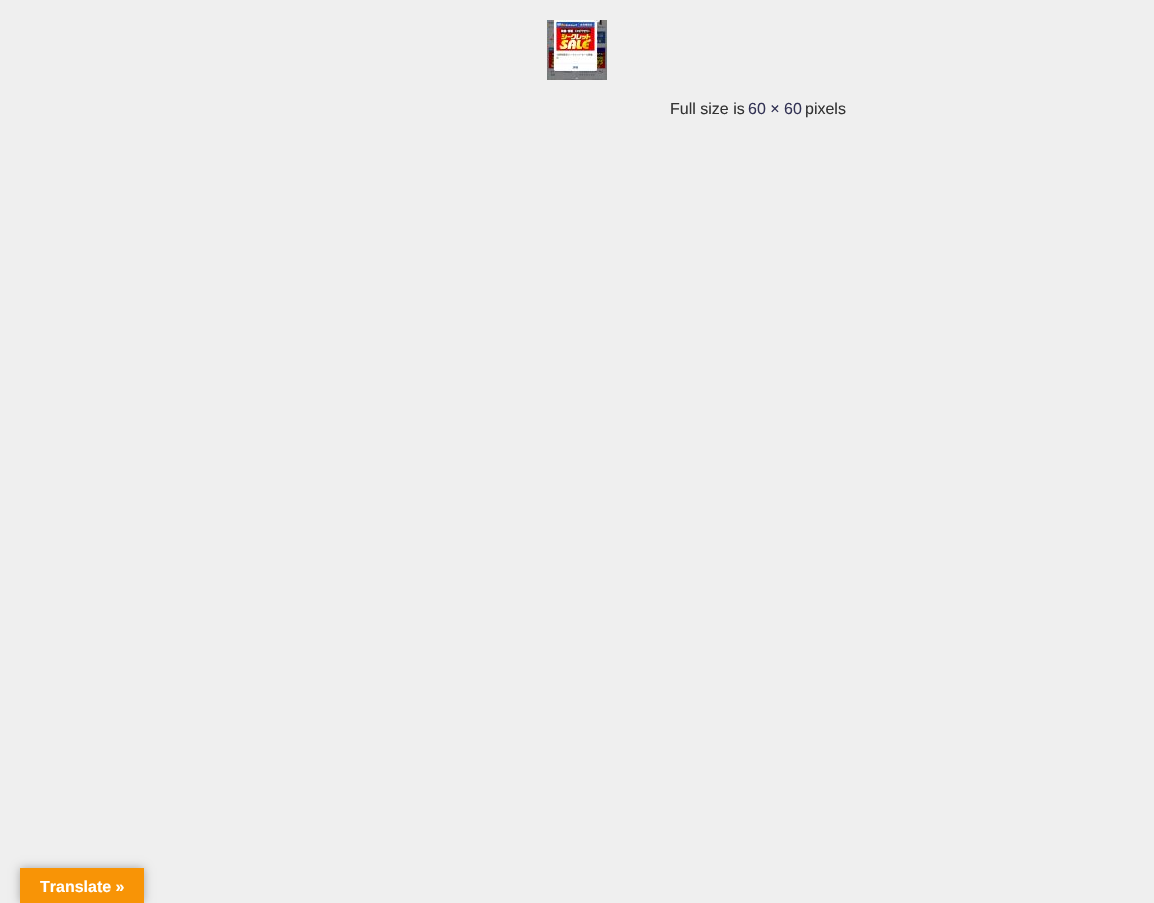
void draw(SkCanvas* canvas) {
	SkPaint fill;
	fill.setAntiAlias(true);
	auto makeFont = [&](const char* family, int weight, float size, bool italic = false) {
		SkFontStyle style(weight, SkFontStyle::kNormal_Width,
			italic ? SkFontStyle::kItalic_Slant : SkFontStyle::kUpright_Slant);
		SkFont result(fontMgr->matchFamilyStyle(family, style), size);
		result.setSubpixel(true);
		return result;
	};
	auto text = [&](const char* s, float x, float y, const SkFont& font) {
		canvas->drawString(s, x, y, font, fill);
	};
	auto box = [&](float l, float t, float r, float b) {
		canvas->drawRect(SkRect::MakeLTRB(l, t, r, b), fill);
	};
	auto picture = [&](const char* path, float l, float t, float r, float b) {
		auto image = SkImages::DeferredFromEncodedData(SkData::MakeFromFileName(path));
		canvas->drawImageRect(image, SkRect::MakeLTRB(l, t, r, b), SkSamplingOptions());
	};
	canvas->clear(0xFFEFEFEF);
	picture("image0.png", 547, 20, 607, 80);
	fill.setColor(0x4D000000);
	fill.setMaskFilter(SkMaskFilter::MakeBlur(kNormal_SkBlurStyle, 4.5f));
	canvas->drawRect(SkRect::MakeLTRB(20, 868, 144, 903), fill);
	fill.setMaskFilter(nullptr);
	fill.setColor(0xFFF89406);
	box(20, 868, 144, 903);
	auto font1 = makeFont("Liberation Sans", 400, 16);
	fill.setColor(0xFF333333);
	text("Full size is", 670, 114, font1);
	fill.setColor(0xFF333355);
	text("60 × 60", 748, 114, font1);
	fill.setColor(0xFF333333);
	text("pixels", 805, 114, font1);
	auto font2 = makeFont("Liberation Sans", 700, 16);
	fill.setColor(0xFFFFFFFF);
	text("Translate »", 40, 892, font2);
}
